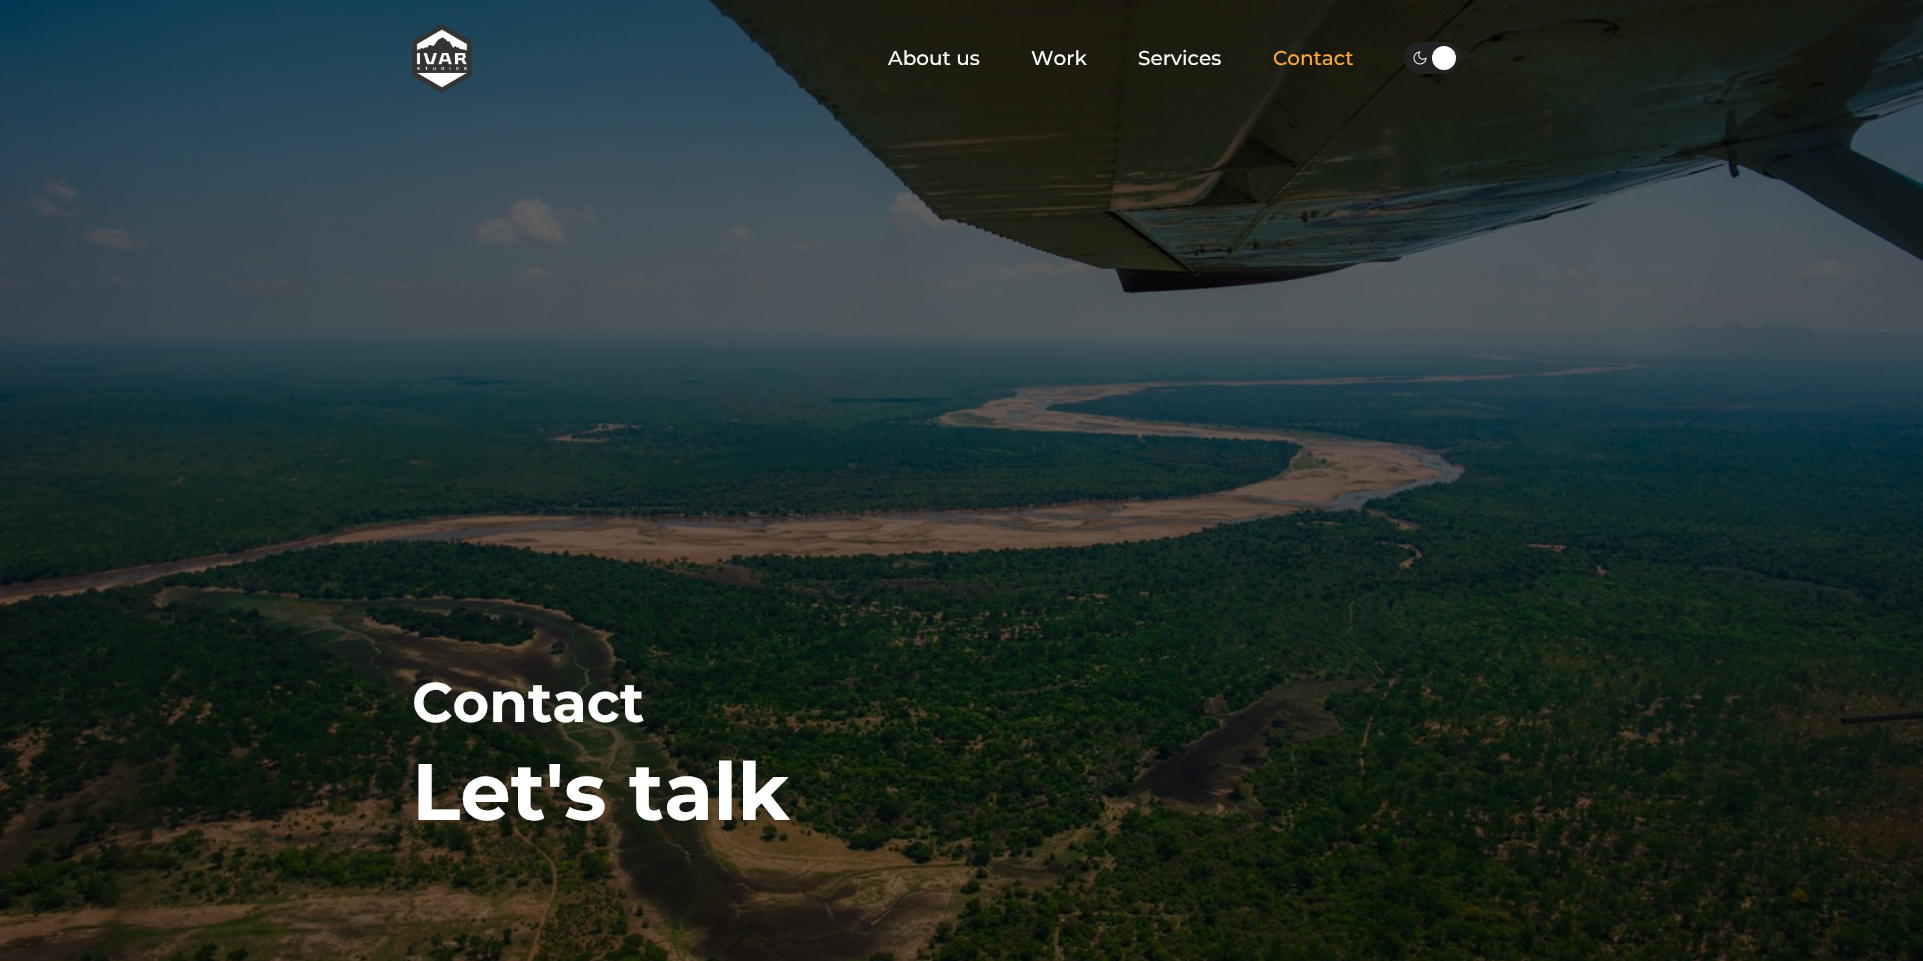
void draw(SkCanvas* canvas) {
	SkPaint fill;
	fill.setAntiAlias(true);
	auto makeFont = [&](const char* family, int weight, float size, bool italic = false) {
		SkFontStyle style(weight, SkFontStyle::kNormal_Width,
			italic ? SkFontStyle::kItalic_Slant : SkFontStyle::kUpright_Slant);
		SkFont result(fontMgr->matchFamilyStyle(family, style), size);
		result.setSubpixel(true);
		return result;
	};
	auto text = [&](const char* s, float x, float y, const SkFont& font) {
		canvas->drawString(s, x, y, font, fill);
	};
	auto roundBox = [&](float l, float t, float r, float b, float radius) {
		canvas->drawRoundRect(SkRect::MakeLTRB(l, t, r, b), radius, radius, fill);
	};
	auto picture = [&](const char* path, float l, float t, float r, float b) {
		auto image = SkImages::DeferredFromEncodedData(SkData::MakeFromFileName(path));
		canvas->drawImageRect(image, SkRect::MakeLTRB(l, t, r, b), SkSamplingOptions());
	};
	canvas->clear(0xFFFFFFFF);
	picture("image2.png", 0, 0, 1923, 961);
	picture("image0.png", 412, 24, 472, 93);
	fill.setColor(0xFF222222);
	roundBox(1404, 42, 1460, 74, 16);
	picture("image1.png", 1413, 51, 1427, 65);
	fill.setColor(0xFFFFFFFF);
	canvas->drawCircle(1444, 58, 12, fill);
	auto font1 = makeFont("Montserrat", 500, 20);
	text("About us", 888, 65, font1);
	text("Work", 1031, 65, font1);
	text("Services", 1138, 65, font1);
	fill.setColor(0xFFFFAA33);
	text("Contact", 1273, 65, font1);
	auto font2 = makeFont("Montserrat", 700, 56);
	fill.setColor(0xFFFFFFFF);
	text("Contact", 412, 722, font2);
	auto font3 = makeFont("Montserrat", 700, 80);
	text("Let's talk", 412, 820, font3);
}
